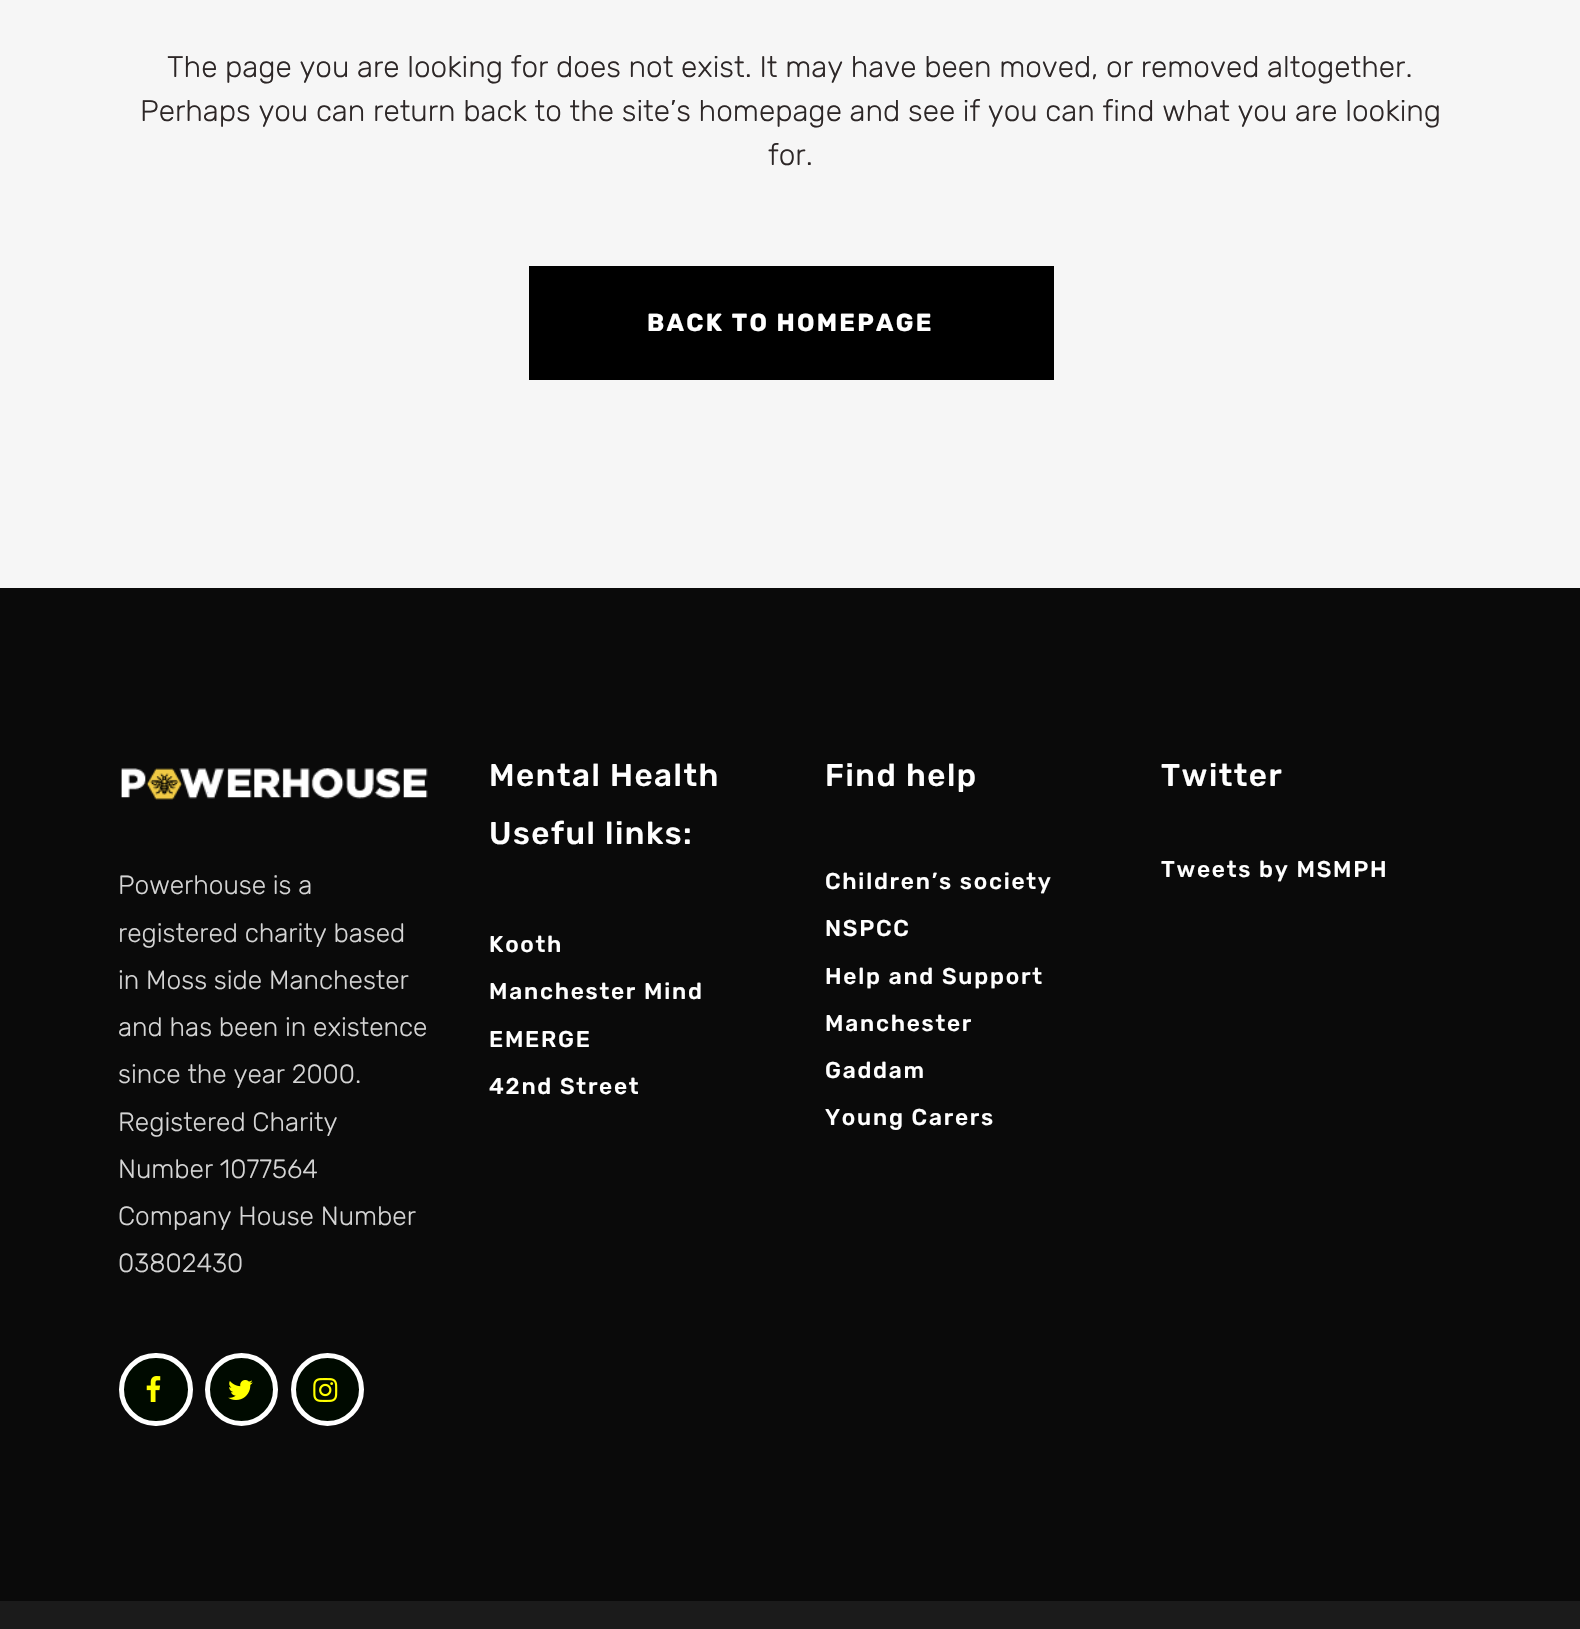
void draw(SkCanvas* canvas) {
	SkPaint fill;
	fill.setAntiAlias(true);
	auto makeFont = [&](const char* family, int weight, float size, bool italic = false) {
		SkFontStyle style(weight, SkFontStyle::kNormal_Width,
			italic ? SkFontStyle::kItalic_Slant : SkFontStyle::kUpright_Slant);
		SkFont result(fontMgr->matchFamilyStyle(family, style), size);
		result.setSubpixel(true);
		return result;
	};
	auto text = [&](const char* s, float x, float y, const SkFont& font) {
		canvas->drawString(s, x, y, font, fill);
	};
	auto spacedText = [&](const char* s, float x, float y, const SkFont& font, const SkPaint& ink, float letter, float word) {
		std::vector<SkGlyphID> glyphs(font.countText(s, strlen(s), SkTextEncoding::kUTF8));
		std::vector<float> xs(glyphs.size());
		font.textToGlyphs(s, strlen(s), SkTextEncoding::kUTF8, glyphs);
		font.getXPos(glyphs, xs, x);
		float extra = 0;
		for (size_t i = 0; i < glyphs.size(); i++) {
			xs[i] += extra;
			extra += letter + word * (glyphs[i] == font.unicharToGlyph(' '));
		}
		canvas->drawTextBlob(SkTextBlob::MakeFromPosHGlyphs(glyphs, xs, y, font), 0, 0, ink);
	};
	auto box = [&](float l, float t, float r, float b) {
		canvas->drawRect(SkRect::MakeLTRB(l, t, r, b), fill);
	};
	auto picture = [&](const char* path, float l, float t, float r, float b) {
		auto image = SkImages::DeferredFromEncodedData(SkData::MakeFromFileName(path));
		canvas->drawImageRect(image, SkRect::MakeLTRB(l, t, r, b), SkSamplingOptions());
	};
	canvas->clear(0xFFF6F6F6);
	fill.setColor(0xFF000000);
	box(529, 266, 1054, 380);
	fill.setColor(0xFF0A0A0A);
	box(0, 588, 1580, 1601);
	picture("image0.png", 121, 768, 428, 800);
	fill.setColor(0xFF000A00);
	canvas->drawRoundRect(SkRect::MakeLTRB(121.5f, 1355.5f, 190.5f, 1423.5f), 34, 34, fill);
	fill.setStyle(SkPaint::kStroke_Style);
	fill.setStrokeWidth(5);
	fill.setColor(0xFFFFFFFF);
	canvas->drawRoundRect(SkRect::MakeLTRB(121.5f, 1355.5f, 190.5f, 1423.5f), 34, 34, fill);
	picture("image1.png", 146, 1376, 161, 1402);
	fill.setStyle(SkPaint::kFill_Style);
	fill.setColor(0xFF000A00);
	canvas->drawCircle(241.5f, 1389.5f, 34, fill);
	fill.setStyle(SkPaint::kStroke_Style);
	fill.setColor(0xFFFFFFFF);
	canvas->drawCircle(241.5f, 1389.5f, 34, fill);
	picture("image2.png", 228, 1380, 253, 1400);
	fill.setStyle(SkPaint::kFill_Style);
	fill.setColor(0xFF000A00);
	canvas->drawCircle(327.5f, 1389.5f, 34, fill);
	fill.setStyle(SkPaint::kStroke_Style);
	fill.setColor(0xFFFFFFFF);
	canvas->drawCircle(327.5f, 1389.5f, 34, fill);
	picture("image3.png", 313, 1378, 338, 1402);
	fill.setStyle(SkPaint::kFill_Style);
	fill.setColor(0xFF1B1B1B);
	box(0, 1601, 1580, 1629);
	auto font1 = makeFont("Rubik", 300, 29.75f);
	fill.setColor(0xFF2D2727);
	text("The page you are looking for does not exist. It may have been moved, or removed altogether.", 167, 77, font1);
	text("Perhaps you can return back to the site’s homepage and see if you can find what you are looking", 140, 121, font1);
	text("for.", 768, 165, font1);
	auto font2 = makeFont("Rubik", 700, 24.5f);
	fill.setColor(0xFFFFFFFF);
	spacedText("BACK TO HOMEPAGE", 647, 331, font2, fill, 2.25f, 0);
	auto font3 = makeFont("Rubik", 500, 31.5f);
	spacedText("Mental Health", 489, 786, font3, fill, 1.5f, 0);
	spacedText("Useful links:", 489, 844, font3, fill, 1.5f, 0);
	auto font4 = makeFont("Rubik", 500, 22.75f);
	spacedText("Kooth", 489, 952, font4, fill, 1.75f, 0);
	spacedText("Manchester Mind", 489, 999, font4, fill, 1.75f, 0);
	spacedText("EMERGE", 489, 1047, font4, fill, 1.75f, 0);
	spacedText("42nd Street", 489, 1094, font4, fill, 1.75f, 0);
	spacedText("Find help", 825, 786, font3, fill, 1.5f, 0);
	spacedText("Children’s society", 825, 889, font4, fill, 1.75f, 0);
	spacedText("NSPCC", 825, 936, font4, fill, 1.75f, 0);
	spacedText("Help and Support", 825, 984, font4, fill, 1.75f, 0);
	spacedText("Manchester", 825, 1031, font4, fill, 1.75f, 0);
	spacedText("Gaddam", 825, 1078, font4, fill, 1.75f, 0);
	spacedText("Young Carers", 825, 1125, font4, fill, 1.75f, 0);
	spacedText("Twitter", 1161, 786, font3, fill, 1.5f, 0);
	spacedText("Tweets by MSMPH", 1161, 877, font4, fill, 1.75f, 0);
	auto font5 = makeFont("Rubik", 300, 26.25f);
	fill.setColor(0xFFD5D5D5);
	text("Powerhouse is a", 118, 894, font5);
	text("registered charity based", 118, 942, font5);
	text("in Moss side Manchester", 118, 989, font5);
	text("and has been in existence", 118, 1036, font5);
	text("since the year 2000.", 118, 1083, font5);
	text("Registered Charity", 118, 1131, font5);
	text("Number 1077564", 118, 1178, font5);
	text("Company House Number", 118, 1225, font5);
	text("03802430", 118, 1272, font5);
}
